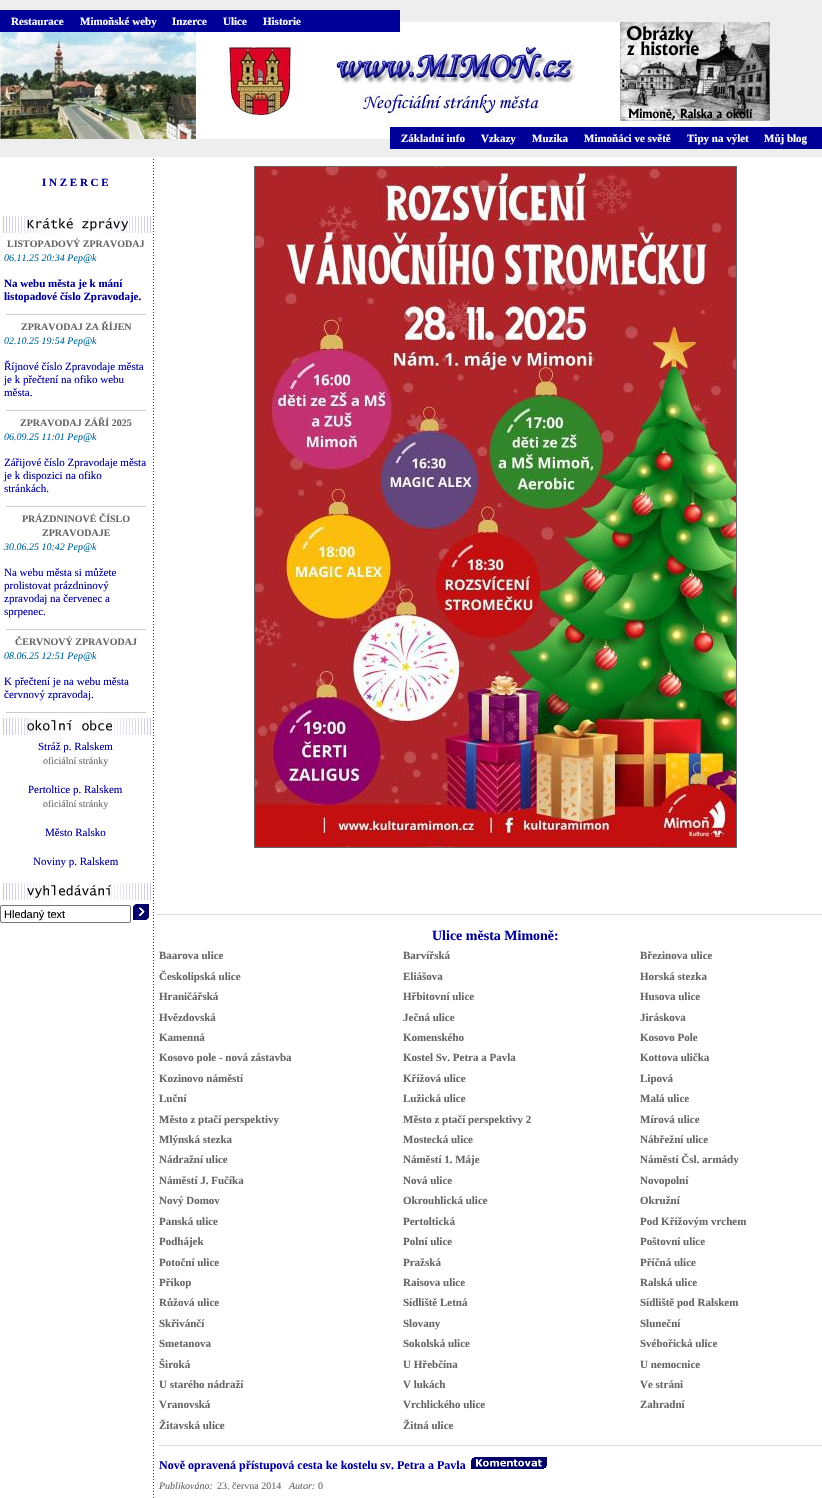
void draw(SkCanvas* canvas) {
	SkPaint fill;
	fill.setAntiAlias(true);
	auto makeFont = [&](const char* family, int weight, float size, bool italic = false) {
		SkFontStyle style(weight, SkFontStyle::kNormal_Width,
			italic ? SkFontStyle::kItalic_Slant : SkFontStyle::kUpright_Slant);
		SkFont result(fontMgr->matchFamilyStyle(family, style), size);
		result.setSubpixel(true);
		return result;
	};
	auto text = [&](const char* s, float x, float y, const SkFont& font) {
		canvas->drawString(s, x, y, font, fill);
	};
	auto box = [&](float l, float t, float r, float b) {
		canvas->drawRect(SkRect::MakeLTRB(l, t, r, b), fill);
	};
	auto picture = [&](const char* path, float l, float t, float r, float b) {
		auto image = SkImages::DeferredFromEncodedData(SkData::MakeFromFileName(path));
		canvas->drawImageRect(image, SkRect::MakeLTRB(l, t, r, b), SkSamplingOptions());
	};
	canvas->clear(0xFFEEEEEE);
	picture("image0.png", 0, 22, 770, 139);
	fill.setColor(0xFF000099);
	box(0, 10, 400, 32);
	box(390, 127, 822, 149);
	fill.setColor(0xFFFFFFFF);
	box(0, 157, 822, 1498);
	picture("image1.png", 3, 216, 151, 233);
	fill.setColor(0xFFCCCCCC);
	box(6, 314, 146, 315);
	box(6, 410, 146, 411);
	box(6, 506, 146, 507);
	box(6, 629, 146, 630);
	box(6, 712, 146, 713);
	picture("image2.png", 3, 718, 151, 735);
	picture("image3.png", 3, 883, 151, 900);
	fill.setStyle(SkPaint::kStroke_Style);
	fill.setStrokeWidth(1);
	fill.setColor(0xFF767676);
	canvas->drawRoundRect(SkRect::MakeLTRB(0.5f, 905.5f, 130.5f, 922.5f), 1.5f, 1.5f, fill);
	picture("image4.png", 133, 904, 149, 920);
	picture("image5.png", 153, 159, 154, 1498);
	fill.setColor(0xFF666666);
	canvas->drawRect(SkRect::MakeLTRB(254.5f, 166.5f, 736.5f, 847.5f), fill);
	picture("image6.png", 255, 167, 736, 847);
	fill.setStyle(SkPaint::kFill_Style);
	fill.setColor(0xFFDDDDDD);
	box(156, 914, 822, 915);
	box(159, 1445, 822, 1446);
	picture("image7.png", 471, 1457, 547, 1469);
	auto font1 = makeFont("Liberation Serif", 700, 11);
	fill.setColor(0xFFFFFFFF);
	text("Restaurace", 11, 25, font1);
	text("Mimoňské weby", 80, 25, font1);
	text("Inzerce", 172, 25, font1);
	text("Ulice", 223, 25, font1);
	text("Historie", 263, 25, font1);
	text("Základní info", 401, 142, font1);
	text("Vzkazy", 481, 142, font1);
	text("Muzika", 532, 142, font1);
	text("Mimoňáci ve světě", 584, 142, font1);
	text("Tipy na výlet", 687, 142, font1);
	text("Můj blog", 764, 142, font1);
	fill.setColor(0xFF000099);
	text("I N Z E R C E", 42, 186, font1);
	auto font2 = makeFont("Liberation Serif", 700, 10);
	fill.setColor(0xFF666666);
	text("LISTOPADOVÝ ZPRAVODAJ", 7, 247, font2);
	auto font3 = makeFont("Liberation Serif", 400, 10, true);
	fill.setColor(0xFF006699);
	text("06.11.25 20:34 Pep@k", 4, 261, font3);
	fill.setColor(0xFF000099);
	text("Na webu města je k mání", 4, 287, font1);
	text("listopadové číslo Zpravodaje.", 4, 300, font1);
	fill.setColor(0xFF666666);
	text("ZPRAVODAJ ZA ŘÍJEN", 21, 330, font2);
	fill.setColor(0xFF006699);
	text("02.10.25 19:54 Pep@k", 4, 344, font3);
	auto font4 = makeFont("Liberation Serif", 400, 11);
	fill.setColor(0xFF000099);
	text("Říjnové číslo Zpravodaje města", 4, 370, font4);
	text("je k přečtení na ofiko webu", 4, 383, font4);
	text("města.", 4, 396, font4);
	fill.setColor(0xFF666666);
	text("ZPRAVODAJ ZÁŘÍ 2025", 20, 426, font2);
	fill.setColor(0xFF006699);
	text("06.09.25 11:01 Pep@k", 4, 440, font3);
	fill.setColor(0xFF000099);
	text("Zářijové číslo Zpravodaje města", 4, 466, font4);
	text("je k dispozici na ofiko", 4, 479, font4);
	text("stránkách.", 4, 492, font4);
	fill.setColor(0xFF666666);
	text("PRÁZDNINOVÉ ČÍSLO", 22, 522, font2);
	text("ZPRAVODAJE", 42, 536, font2);
	fill.setColor(0xFF006699);
	text("30.06.25 10:42 Pep@k", 4, 550, font3);
	fill.setColor(0xFF000099);
	text("Na webu města si můžete", 4, 576, font4);
	text("prolistovat prázdninový", 4, 589, font4);
	text("zpravodaj na červenec a", 4, 602, font4);
	text("sprpenec.", 4, 615, font4);
	fill.setColor(0xFF666666);
	text("ČERVNOVÝ ZPRAVODAJ", 15, 645, font2);
	fill.setColor(0xFF006699);
	text("08.06.25 12:51 Pep@k", 4, 659, font3);
	fill.setColor(0xFF000099);
	text("K přečtení je na webu města", 4, 685, font4);
	text("červnový zpravodaj.", 4, 698, font4);
	text("Stráž p. Ralskem", 38, 750, font4);
	auto font5 = makeFont("Liberation Serif", 400, 10);
	fill.setColor(0xFF666666);
	text("oficiální stránky", 43, 764, font5);
	fill.setColor(0xFF000099);
	text("Pertoltice p. Ralskem", 28, 793, font4);
	fill.setColor(0xFF666666);
	text("oficiální stránky", 43, 807, font5);
	fill.setColor(0xFF000099);
	text("Město Ralsko", 45, 836, font4);
	text("Noviny p. Ralskem", 33, 865, font4);
	auto font6 = makeFont("Liberation Sans", 400, 11);
	fill.setColor(0xFF000000);
	text("Hledaný text", 4, 918, font6);
	auto font7 = makeFont("Liberation Serif", 700, 14);
	fill.setColor(0xFF000099);
	text("Ulice města Mimoně:", 432, 940, font7);
	fill.setColor(0xFF666666);
	text("Baarova ulice", 159, 959, font1);
	text("Barvířská", 403, 959, font1);
	text("Březinova ulice", 640, 959, font1);
	text("Českolipská ulice", 159, 980, font1);
	text("Eliášova", 403, 980, font1);
	text("Horská stezka", 640, 980, font1);
	text("Hraničářská", 159, 1000, font1);
	text("Hřbitovní ulice", 403, 1000, font1);
	text("Husova ulice", 640, 1000, font1);
	text("Hvězdovská", 159, 1021, font1);
	text("Ječná ulice", 403, 1021, font1);
	text("Jiráskova", 640, 1021, font1);
	text("Kamenná", 159, 1041, font1);
	text("Komenského", 403, 1041, font1);
	text("Kosovo Pole", 640, 1041, font1);
	text("Kosovo pole - nová zástavba", 159, 1061, font1);
	text("Kostel Sv. Petra a Pavla", 403, 1061, font1);
	text("Kottova ulička", 640, 1061, font1);
	text("Kozinovo náměstí", 159, 1082, font1);
	text("Křížová ulice", 403, 1082, font1);
	text("Lipová", 640, 1082, font1);
	text("Luční", 159, 1102, font1);
	text("Lužická ulice", 403, 1102, font1);
	text("Malá ulice", 640, 1102, font1);
	text("Město z ptačí perspektivy", 159, 1123, font1);
	text("Město z ptačí perspektivy 2", 403, 1123, font1);
	text("Mírová ulice", 640, 1123, font1);
	text("Mlýnská stezka", 159, 1143, font1);
	text("Mostecká ulice", 403, 1143, font1);
	text("Nábřežní ulice", 640, 1143, font1);
	text("Nádražní ulice", 159, 1163, font1);
	text("Náměstí 1. Máje", 403, 1163, font1);
	text("Náměstí Čsl. armády", 640, 1163, font1);
	text("Náměstí J. Fučíka", 159, 1184, font1);
	text("Nová ulice", 403, 1184, font1);
	text("Novopolní", 640, 1184, font1);
	text("Nový Domov", 159, 1204, font1);
	text("Okrouhlická ulice", 403, 1204, font1);
	text("Okružní", 640, 1204, font1);
	text("Panská ulice", 159, 1225, font1);
	text("Pertoltická", 403, 1225, font1);
	text("Pod Křížovým vrchem", 640, 1225, font1);
	text("Podhájek", 159, 1245, font1);
	text("Polní ulice", 403, 1245, font1);
	text("Poštovní ulice", 640, 1245, font1);
	text("Potoční ulice", 159, 1266, font1);
	text("Pražská", 403, 1266, font1);
	text("Příčná ulice", 640, 1266, font1);
	text("Příkop", 159, 1286, font1);
	text("Raisova ulice", 403, 1286, font1);
	text("Ralská ulice", 640, 1286, font1);
	text("Růžová ulice", 159, 1306, font1);
	text("Sídliště Letná", 403, 1306, font1);
	text("Sídliště pod Ralskem", 640, 1306, font1);
	text("Skřivánčí", 159, 1327, font1);
	text("Slovany", 403, 1327, font1);
	text("Sluneční", 640, 1327, font1);
	text("Smetanova", 159, 1347, font1);
	text("Sokolská ulice", 403, 1347, font1);
	text("Svébořická ulice", 640, 1347, font1);
	text("Široká", 159, 1368, font1);
	text("U Hřebčína", 403, 1368, font1);
	text("U nemocnice", 640, 1368, font1);
	text("U starého nádraží", 159, 1388, font1);
	text("V lukách", 403, 1388, font1);
	text("Ve stráni", 640, 1388, font1);
	text("Vranovská", 159, 1408, font1);
	text("Vrchlického ulice", 403, 1408, font1);
	text("Zahradní", 640, 1408, font1);
	text("Žitavská ulice", 159, 1429, font1);
	text("Žitná ulice", 403, 1429, font1);
	auto font8 = makeFont("Liberation Serif", 700, 12);
	fill.setColor(0xFF000099);
	text("Nově opravená přístupová cesta ke kostelu sv. Petra a Pavla", 159, 1469, font8);
	fill.setColor(0xFF666666);
	text("Publikováno:", 159, 1489, font3);
	text("23. června 2014", 217, 1489, font5);
	text("Autor:", 289, 1489, font3);
	text("0", 318, 1489, font5);
}
